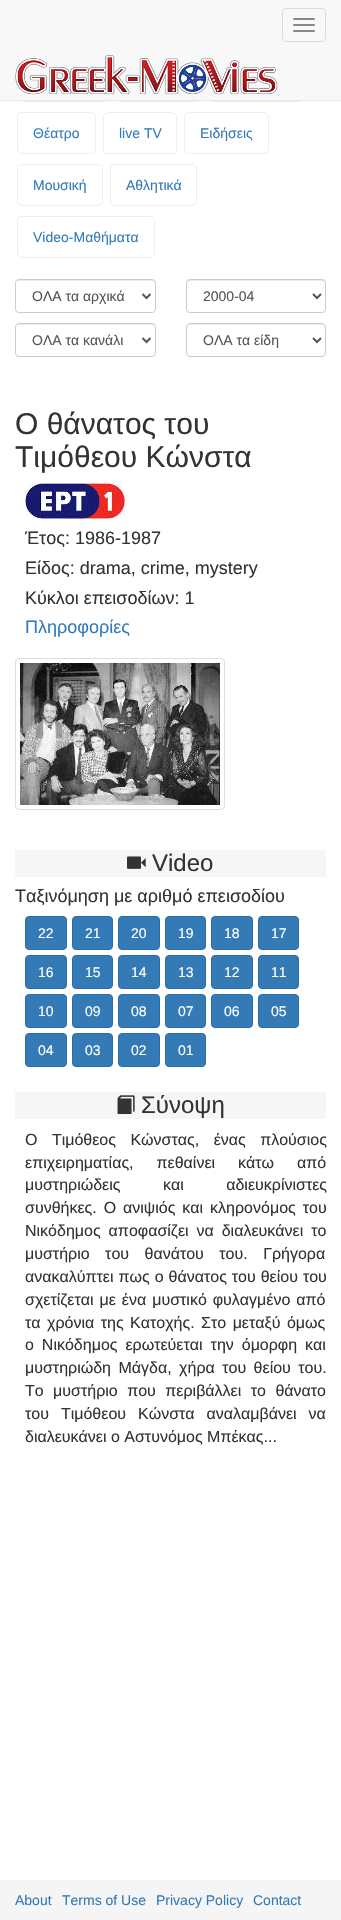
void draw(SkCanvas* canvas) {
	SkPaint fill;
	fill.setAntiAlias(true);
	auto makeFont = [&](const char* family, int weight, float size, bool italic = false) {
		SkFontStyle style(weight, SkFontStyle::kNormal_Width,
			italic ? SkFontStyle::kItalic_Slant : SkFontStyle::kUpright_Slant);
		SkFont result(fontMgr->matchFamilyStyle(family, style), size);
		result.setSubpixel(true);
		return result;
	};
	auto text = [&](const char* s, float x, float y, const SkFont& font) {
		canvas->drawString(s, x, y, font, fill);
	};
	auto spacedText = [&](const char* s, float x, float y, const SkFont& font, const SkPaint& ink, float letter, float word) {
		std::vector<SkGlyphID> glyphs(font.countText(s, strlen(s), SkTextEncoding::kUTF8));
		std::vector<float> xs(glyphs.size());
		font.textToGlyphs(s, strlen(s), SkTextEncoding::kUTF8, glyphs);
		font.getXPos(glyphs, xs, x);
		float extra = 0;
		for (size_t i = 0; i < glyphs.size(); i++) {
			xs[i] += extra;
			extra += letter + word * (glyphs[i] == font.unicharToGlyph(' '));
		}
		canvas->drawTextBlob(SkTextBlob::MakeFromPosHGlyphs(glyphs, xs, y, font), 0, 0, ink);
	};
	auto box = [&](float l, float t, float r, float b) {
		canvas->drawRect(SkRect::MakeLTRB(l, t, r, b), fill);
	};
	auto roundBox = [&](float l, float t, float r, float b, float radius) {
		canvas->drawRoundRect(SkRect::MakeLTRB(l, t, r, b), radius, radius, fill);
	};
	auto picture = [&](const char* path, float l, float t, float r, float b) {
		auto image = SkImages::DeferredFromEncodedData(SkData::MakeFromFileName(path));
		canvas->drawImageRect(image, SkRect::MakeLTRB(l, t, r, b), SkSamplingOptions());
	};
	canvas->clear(0xFFFFFFFF);
	fill.setStyle(SkPaint::kStroke_Style);
	fill.setStrokeWidth(1);
	fill.setColor(0xFFEEEEEE);
	canvas->drawRoundRect(SkRect::MakeLTRB(20.5f, 60.5f, 108.5f, 101.5f), 4.5f, 4.5f, fill);
	canvas->drawRoundRect(SkRect::MakeLTRB(116.5f, 60.5f, 200.5f, 101.5f), 4.5f, 4.5f, fill);
	canvas->drawRoundRect(SkRect::MakeLTRB(208.5f, 60.5f, 303.5f, 101.5f), 4.5f, 4.5f, fill);
	fill.setStyle(SkPaint::kFill_Style);
	fill.setColor(0xFFF8F8F8);
	box(0, 0, 341, 100);
	fill.setColor(0xFFE7E7E7);
	box(0, 100, 341, 101);
	fill.setStyle(SkPaint::kStroke_Style);
	fill.setColor(0xFFDDDDDD);
	canvas->drawRoundRect(SkRect::MakeLTRB(282.5f, 8.5f, 325.5f, 41.5f), 3.5f, 3.5f, fill);
	fill.setStyle(SkPaint::kFill_Style);
	fill.setColor(0xFF888888);
	roundBox(293, 18, 315, 20, 1);
	roundBox(293, 24, 315, 26, 1);
	roundBox(293, 30, 315, 32, 1);
	picture("image0.png", 15, 55, 278, 95);
	fill.setStyle(SkPaint::kStroke_Style);
	fill.setColor(0xFFEEEEEE);
	canvas->drawRoundRect(SkRect::MakeLTRB(17.5f, 112.5f, 95.5f, 153.5f), 4.5f, 4.5f, fill);
	canvas->drawRoundRect(SkRect::MakeLTRB(103.5f, 112.5f, 176.5f, 153.5f), 4.5f, 4.5f, fill);
	canvas->drawRoundRect(SkRect::MakeLTRB(184.5f, 112.5f, 268.5f, 153.5f), 4.5f, 4.5f, fill);
	canvas->drawRoundRect(SkRect::MakeLTRB(17.5f, 164.5f, 102.5f, 205.5f), 4.5f, 4.5f, fill);
	canvas->drawRoundRect(SkRect::MakeLTRB(110.5f, 164.5f, 196.5f, 205.5f), 4.5f, 4.5f, fill);
	canvas->drawRoundRect(SkRect::MakeLTRB(17.5f, 216.5f, 154.5f, 257.5f), 4.5f, 4.5f, fill);
	fill.setStyle(SkPaint::kFill_Style);
	fill.setColor(0xFFECECEC);
	canvas->drawPath(SkPathBuilder().moveTo(19, 281).lineTo(152, 281).cubicTo(154, 281, 155, 282, 155, 284).cubicTo(155, 282, 154, 280, 152, 280).lineTo(19, 280).cubicTo(17, 280, 16, 282, 16, 284).cubicTo(16, 282, 17, 281, 19, 281).close().detach(), fill);
	fill.setStyle(SkPaint::kStroke_Style);
	fill.setColor(0xFFCCCCCC);
	canvas->drawRoundRect(SkRect::MakeLTRB(15.5f, 279.5f, 155.5f, 312.5f), 3.5f, 3.5f, fill);
	fill.setStrokeWidth(2);
	fill.setColor(0xFF555555);
	canvas->drawPath(SkPathBuilder().moveTo(142.5f, 294).lineTo(146.5f, 298).lineTo(150.5f, 294).detach(), fill);
	fill.setStyle(SkPaint::kFill_Style);
	fill.setColor(0xFFECECEC);
	canvas->drawPath(SkPathBuilder().moveTo(190, 281).lineTo(322, 281).cubicTo(324, 281, 325, 282, 325, 284).cubicTo(325, 282, 325, 280, 323, 280).lineTo(189, 280).cubicTo(187, 280, 187, 282, 187, 284).cubicTo(187, 282, 188, 281, 190, 281).close().detach(), fill);
	fill.setStyle(SkPaint::kStroke_Style);
	fill.setStrokeWidth(1);
	fill.setColor(0xFFCCCCCC);
	canvas->drawRoundRect(SkRect::MakeLTRB(186.5f, 279.5f, 325.5f, 312.5f), 3.5f, 3.5f, fill);
	fill.setStrokeWidth(2);
	fill.setColor(0xFF555555);
	canvas->drawPath(SkPathBuilder().moveTo(313, 294).lineTo(317, 298).lineTo(321, 294).detach(), fill);
	fill.setStyle(SkPaint::kFill_Style);
	fill.setColor(0xFFECECEC);
	canvas->drawPath(SkPathBuilder().moveTo(19, 325).lineTo(152, 325).cubicTo(154, 325, 155, 326, 155, 328).cubicTo(155, 326, 154, 324, 152, 324).lineTo(19, 324).cubicTo(17, 324, 16, 326, 16, 328).cubicTo(16, 326, 17, 325, 19, 325).close().detach(), fill);
	fill.setStyle(SkPaint::kStroke_Style);
	fill.setStrokeWidth(1);
	fill.setColor(0xFFCCCCCC);
	canvas->drawRoundRect(SkRect::MakeLTRB(15.5f, 323.5f, 155.5f, 356.5f), 3.5f, 3.5f, fill);
	fill.setStrokeWidth(2);
	fill.setColor(0xFF555555);
	canvas->drawPath(SkPathBuilder().moveTo(142.5f, 338).lineTo(146.5f, 342).lineTo(150.5f, 338).detach(), fill);
	fill.setStyle(SkPaint::kFill_Style);
	fill.setColor(0xFFECECEC);
	canvas->drawPath(SkPathBuilder().moveTo(190, 325).lineTo(322, 325).cubicTo(324, 325, 325, 326, 325, 328).cubicTo(325, 326, 325, 324, 323, 324).lineTo(189, 324).cubicTo(187, 324, 187, 326, 187, 328).cubicTo(187, 326, 188, 325, 190, 325).close().detach(), fill);
	fill.setStyle(SkPaint::kStroke_Style);
	fill.setStrokeWidth(1);
	fill.setColor(0xFFCCCCCC);
	canvas->drawRoundRect(SkRect::MakeLTRB(186.5f, 323.5f, 325.5f, 356.5f), 3.5f, 3.5f, fill);
	fill.setStrokeWidth(2);
	fill.setColor(0xFF555555);
	canvas->drawPath(SkPathBuilder().moveTo(313, 338).lineTo(317, 342).lineTo(321, 338).detach(), fill);
	picture("image1.png", 25, 483, 125, 519);
	fill.setStrokeWidth(1);
	fill.setColor(0xFFDDDDDD);
	canvas->drawRoundRect(SkRect::MakeLTRB(15.5f, 658.5f, 224.5f, 809.5f), 3.5f, 3.5f, fill);
	picture("image2.png", 20, 663, 220, 805);
	fill.setStyle(SkPaint::kFill_Style);
	fill.setColor(0xFFF4F6F8);
	box(15, 850, 326, 877);
	picture("image3.png", 127, 856, 146, 869);
	fill.setColor(0xFF337AB7);
	canvas->drawRoundRect(SkRect::MakeLTRB(25.5f, 916.5f, 66.5f, 949.5f), 3.5f, 3.5f, fill);
	fill.setStyle(SkPaint::kStroke_Style);
	fill.setColor(0xFF2E6DA4);
	canvas->drawRoundRect(SkRect::MakeLTRB(25.5f, 916.5f, 66.5f, 949.5f), 3.5f, 3.5f, fill);
	fill.setStyle(SkPaint::kFill_Style);
	fill.setColor(0xFF337AB7);
	canvas->drawRoundRect(SkRect::MakeLTRB(72.5f, 916.5f, 112.5f, 949.5f), 3.5f, 3.5f, fill);
	fill.setStyle(SkPaint::kStroke_Style);
	fill.setColor(0xFF2E6DA4);
	canvas->drawRoundRect(SkRect::MakeLTRB(72.5f, 916.5f, 112.5f, 949.5f), 3.5f, 3.5f, fill);
	fill.setStyle(SkPaint::kFill_Style);
	fill.setColor(0xFF337AB7);
	canvas->drawRoundRect(SkRect::MakeLTRB(118.5f, 916.5f, 159.5f, 949.5f), 3.5f, 3.5f, fill);
	fill.setStyle(SkPaint::kStroke_Style);
	fill.setColor(0xFF2E6DA4);
	canvas->drawRoundRect(SkRect::MakeLTRB(118.5f, 916.5f, 159.5f, 949.5f), 3.5f, 3.5f, fill);
	fill.setStyle(SkPaint::kFill_Style);
	fill.setColor(0xFF337AB7);
	canvas->drawRoundRect(SkRect::MakeLTRB(165.5f, 916.5f, 205.5f, 949.5f), 3.5f, 3.5f, fill);
	fill.setStyle(SkPaint::kStroke_Style);
	fill.setColor(0xFF2E6DA4);
	canvas->drawRoundRect(SkRect::MakeLTRB(165.5f, 916.5f, 205.5f, 949.5f), 3.5f, 3.5f, fill);
	fill.setStyle(SkPaint::kFill_Style);
	fill.setColor(0xFF337AB7);
	canvas->drawRoundRect(SkRect::MakeLTRB(211.5f, 916.5f, 252.5f, 949.5f), 3.5f, 3.5f, fill);
	fill.setStyle(SkPaint::kStroke_Style);
	fill.setColor(0xFF2E6DA4);
	canvas->drawRoundRect(SkRect::MakeLTRB(211.5f, 916.5f, 252.5f, 949.5f), 3.5f, 3.5f, fill);
	fill.setStyle(SkPaint::kFill_Style);
	fill.setColor(0xFF337AB7);
	canvas->drawRoundRect(SkRect::MakeLTRB(258.5f, 916.5f, 298.5f, 949.5f), 3.5f, 3.5f, fill);
	fill.setStyle(SkPaint::kStroke_Style);
	fill.setColor(0xFF2E6DA4);
	canvas->drawRoundRect(SkRect::MakeLTRB(258.5f, 916.5f, 298.5f, 949.5f), 3.5f, 3.5f, fill);
	fill.setStyle(SkPaint::kFill_Style);
	fill.setColor(0xFF337AB7);
	canvas->drawRoundRect(SkRect::MakeLTRB(25.5f, 955.5f, 66.5f, 988.5f), 3.5f, 3.5f, fill);
	fill.setStyle(SkPaint::kStroke_Style);
	fill.setColor(0xFF2E6DA4);
	canvas->drawRoundRect(SkRect::MakeLTRB(25.5f, 955.5f, 66.5f, 988.5f), 3.5f, 3.5f, fill);
	fill.setStyle(SkPaint::kFill_Style);
	fill.setColor(0xFF337AB7);
	canvas->drawRoundRect(SkRect::MakeLTRB(72.5f, 955.5f, 112.5f, 988.5f), 3.5f, 3.5f, fill);
	fill.setStyle(SkPaint::kStroke_Style);
	fill.setColor(0xFF2E6DA4);
	canvas->drawRoundRect(SkRect::MakeLTRB(72.5f, 955.5f, 112.5f, 988.5f), 3.5f, 3.5f, fill);
	fill.setStyle(SkPaint::kFill_Style);
	fill.setColor(0xFF337AB7);
	canvas->drawRoundRect(SkRect::MakeLTRB(118.5f, 955.5f, 159.5f, 988.5f), 3.5f, 3.5f, fill);
	fill.setStyle(SkPaint::kStroke_Style);
	fill.setColor(0xFF2E6DA4);
	canvas->drawRoundRect(SkRect::MakeLTRB(118.5f, 955.5f, 159.5f, 988.5f), 3.5f, 3.5f, fill);
	fill.setStyle(SkPaint::kFill_Style);
	fill.setColor(0xFF337AB7);
	canvas->drawRoundRect(SkRect::MakeLTRB(165.5f, 955.5f, 205.5f, 988.5f), 3.5f, 3.5f, fill);
	fill.setStyle(SkPaint::kStroke_Style);
	fill.setColor(0xFF2E6DA4);
	canvas->drawRoundRect(SkRect::MakeLTRB(165.5f, 955.5f, 205.5f, 988.5f), 3.5f, 3.5f, fill);
	fill.setStyle(SkPaint::kFill_Style);
	fill.setColor(0xFF337AB7);
	canvas->drawRoundRect(SkRect::MakeLTRB(211.5f, 955.5f, 252.5f, 988.5f), 3.5f, 3.5f, fill);
	fill.setStyle(SkPaint::kStroke_Style);
	fill.setColor(0xFF2E6DA4);
	canvas->drawRoundRect(SkRect::MakeLTRB(211.5f, 955.5f, 252.5f, 988.5f), 3.5f, 3.5f, fill);
	fill.setStyle(SkPaint::kFill_Style);
	fill.setColor(0xFF337AB7);
	canvas->drawRoundRect(SkRect::MakeLTRB(258.5f, 955.5f, 298.5f, 988.5f), 3.5f, 3.5f, fill);
	fill.setStyle(SkPaint::kStroke_Style);
	fill.setColor(0xFF2E6DA4);
	canvas->drawRoundRect(SkRect::MakeLTRB(258.5f, 955.5f, 298.5f, 988.5f), 3.5f, 3.5f, fill);
	fill.setStyle(SkPaint::kFill_Style);
	fill.setColor(0xFF337AB7);
	canvas->drawRoundRect(SkRect::MakeLTRB(25.5f, 994.5f, 66.5f, 1027.5f), 3.5f, 3.5f, fill);
	fill.setStyle(SkPaint::kStroke_Style);
	fill.setColor(0xFF2E6DA4);
	canvas->drawRoundRect(SkRect::MakeLTRB(25.5f, 994.5f, 66.5f, 1027.5f), 3.5f, 3.5f, fill);
	fill.setStyle(SkPaint::kFill_Style);
	fill.setColor(0xFF337AB7);
	canvas->drawRoundRect(SkRect::MakeLTRB(72.5f, 994.5f, 112.5f, 1027.5f), 3.5f, 3.5f, fill);
	fill.setStyle(SkPaint::kStroke_Style);
	fill.setColor(0xFF2E6DA4);
	canvas->drawRoundRect(SkRect::MakeLTRB(72.5f, 994.5f, 112.5f, 1027.5f), 3.5f, 3.5f, fill);
	fill.setStyle(SkPaint::kFill_Style);
	fill.setColor(0xFF337AB7);
	canvas->drawRoundRect(SkRect::MakeLTRB(118.5f, 994.5f, 159.5f, 1027.5f), 3.5f, 3.5f, fill);
	fill.setStyle(SkPaint::kStroke_Style);
	fill.setColor(0xFF2E6DA4);
	canvas->drawRoundRect(SkRect::MakeLTRB(118.5f, 994.5f, 159.5f, 1027.5f), 3.5f, 3.5f, fill);
	fill.setStyle(SkPaint::kFill_Style);
	fill.setColor(0xFF337AB7);
	canvas->drawRoundRect(SkRect::MakeLTRB(165.5f, 994.5f, 205.5f, 1027.5f), 3.5f, 3.5f, fill);
	fill.setStyle(SkPaint::kStroke_Style);
	fill.setColor(0xFF2E6DA4);
	canvas->drawRoundRect(SkRect::MakeLTRB(165.5f, 994.5f, 205.5f, 1027.5f), 3.5f, 3.5f, fill);
	fill.setStyle(SkPaint::kFill_Style);
	fill.setColor(0xFF337AB7);
	canvas->drawRoundRect(SkRect::MakeLTRB(211.5f, 994.5f, 252.5f, 1027.5f), 3.5f, 3.5f, fill);
	fill.setStyle(SkPaint::kStroke_Style);
	fill.setColor(0xFF2E6DA4);
	canvas->drawRoundRect(SkRect::MakeLTRB(211.5f, 994.5f, 252.5f, 1027.5f), 3.5f, 3.5f, fill);
	fill.setStyle(SkPaint::kFill_Style);
	fill.setColor(0xFF337AB7);
	canvas->drawRoundRect(SkRect::MakeLTRB(258.5f, 994.5f, 298.5f, 1027.5f), 3.5f, 3.5f, fill);
	fill.setStyle(SkPaint::kStroke_Style);
	fill.setColor(0xFF2E6DA4);
	canvas->drawRoundRect(SkRect::MakeLTRB(258.5f, 994.5f, 298.5f, 1027.5f), 3.5f, 3.5f, fill);
	fill.setStyle(SkPaint::kFill_Style);
	fill.setColor(0xFF337AB7);
	canvas->drawRoundRect(SkRect::MakeLTRB(25.5f, 1033.5f, 66.5f, 1066.5f), 3.5f, 3.5f, fill);
	fill.setStyle(SkPaint::kStroke_Style);
	fill.setColor(0xFF2E6DA4);
	canvas->drawRoundRect(SkRect::MakeLTRB(25.5f, 1033.5f, 66.5f, 1066.5f), 3.5f, 3.5f, fill);
	fill.setStyle(SkPaint::kFill_Style);
	fill.setColor(0xFF337AB7);
	canvas->drawRoundRect(SkRect::MakeLTRB(72.5f, 1033.5f, 112.5f, 1066.5f), 3.5f, 3.5f, fill);
	fill.setStyle(SkPaint::kStroke_Style);
	fill.setColor(0xFF2E6DA4);
	canvas->drawRoundRect(SkRect::MakeLTRB(72.5f, 1033.5f, 112.5f, 1066.5f), 3.5f, 3.5f, fill);
	fill.setStyle(SkPaint::kFill_Style);
	fill.setColor(0xFF337AB7);
	canvas->drawRoundRect(SkRect::MakeLTRB(118.5f, 1033.5f, 159.5f, 1066.5f), 3.5f, 3.5f, fill);
	fill.setStyle(SkPaint::kStroke_Style);
	fill.setColor(0xFF2E6DA4);
	canvas->drawRoundRect(SkRect::MakeLTRB(118.5f, 1033.5f, 159.5f, 1066.5f), 3.5f, 3.5f, fill);
	fill.setStyle(SkPaint::kFill_Style);
	fill.setColor(0xFF337AB7);
	canvas->drawRoundRect(SkRect::MakeLTRB(165.5f, 1033.5f, 205.5f, 1066.5f), 3.5f, 3.5f, fill);
	fill.setStyle(SkPaint::kStroke_Style);
	fill.setColor(0xFF2E6DA4);
	canvas->drawRoundRect(SkRect::MakeLTRB(165.5f, 1033.5f, 205.5f, 1066.5f), 3.5f, 3.5f, fill);
	fill.setStyle(SkPaint::kFill_Style);
	fill.setColor(0xFFF4F6F8);
	box(15, 1092, 326, 1119);
	picture("image4.png", 117, 1095, 135, 1114);
	fill.setColor(0xFFF5F5F5);
	box(0, 1880, 341, 1920);
	auto font1 = makeFont("Liberation Sans", 400, 14);
	fill.setColor(0xFF337AB7);
	text("Θέατρο", 33, 138, font1);
	text("live TV", 119, 138, font1);
	text("Ειδήσεις", 200, 138, font1);
	text("Μουσική", 33, 190, font1);
	text("Αθλητικά", 126, 190, font1);
	text("Video-Mαθήματα", 33, 242, font1);
	fill.setColor(0xFF555555);
	text("ΟΛΑ τα αρχικά", 32, 301, font1);
	text("2000-04", 203, 301, font1);
	text("ΟΛΑ τα κανάλι", 32, 345, font1);
	text("ΟΛΑ τα είδη", 203, 345, font1);
	auto font2 = makeFont("Liberation Sans", 400, 30);
	fill.setColor(0xFF333333);
	text("Ο θάνατος του", 15, 434, font2);
	text("Τιμόθεου Κώνστα", 15, 467, font2);
	auto font3 = makeFont("Liberation Sans", 400, 18);
	text("Έτος: 1986-1987", 25, 544, font3);
	text("Είδος: drama, crime, mystery", 25, 574, font3);
	text("Κύκλοι επεισοδίων: 1", 25, 604, font3);
	fill.setColor(0xFF337AB7);
	text("Πληροφορίες", 25, 633, font3);
	auto font4 = makeFont("Liberation Sans", 400, 24);
	fill.setColor(0xFF333333);
	text("Video", 152, 871, font4);
	text("Ταξινόμηση με αριθμό επεισοδίου", 15, 902, font3);
	fill.setColor(0xFFFFFFFF);
	text("22", 38, 938, font1);
	text("21", 85, 938, font1);
	text("20", 131, 938, font1);
	text("19", 178, 938, font1);
	text("18", 224, 938, font1);
	text("17", 271, 938, font1);
	text("16", 38, 977, font1);
	text("15", 85, 977, font1);
	text("14", 131, 977, font1);
	text("13", 178, 977, font1);
	text("12", 224, 977, font1);
	text("11", 271, 977, font1);
	text("10", 38, 1016, font1);
	text("09", 85, 1016, font1);
	text("08", 131, 1016, font1);
	text("07", 178, 1016, font1);
	text("06", 224, 1016, font1);
	text("05", 271, 1016, font1);
	text("04", 38, 1055, font1);
	text("03", 85, 1055, font1);
	text("02", 131, 1055, font1);
	text("01", 178, 1055, font1);
	fill.setColor(0xFF333333);
	text("Σύνοψη", 141, 1113, font4);
	auto font5 = makeFont("Liberation Sans", 400, 16);
	spacedText("Ο Τιμόθεος Κώνστας, ένας πλούσιος", 25, 1145, font5, fill, 0, 10);
	spacedText("επιχειρηματίας, πεθαίνει κάτω από", 25, 1168, font5, fill, 0, 18.5f);
	spacedText("μυστηριώδεις και αδιευκρίνιστες", 25, 1190, font5, fill, 0, 38);
	spacedText("συνθήκες. Ο ανιψιός και κληρονόμος του", 25, 1213, font5, fill, 0, 2.5f);
	spacedText("Νικόδημος αποφασίζει να διαλευκάνει το", 25, 1236, font5, fill, 0, 3.5f);
	spacedText("μυστήριο του θανάτου του. Γρήγορα", 25, 1259, font5, fill, 0, 11);
	spacedText("ανακαλύπτει πως ο θάνατος του θείου του", 25, 1282, font5, fill, 0, 0.5f);
	spacedText("σχετίζεται με ένα μυστικό φυλαγμένο από", 25, 1305, font5, fill, 0, 1.5f);
	spacedText("τα χρόνια της Κατοχής. Στο μεταξύ όμως", 25, 1328, font5, fill, 0, 2);
	spacedText("ο Νικόδημος ερωτεύεται την όμορφη και", 25, 1350, font5, fill, 0, 3.5f);
	spacedText("μυστηριώδη Μάγδα, χήρα του θείου του.", 25, 1373, font5, fill, 0, 3);
	spacedText("Το μυστήριο που περιβάλλει το θάνατο", 25, 1396, font5, fill, 0, 5);
	spacedText("του Τιμόθεου Κώνστα αναλαμβάνει να", 25, 1419, font5, fill, 0, 7.5f);
	text("διαλευκάνει ο Αστυνόμος Μπέκας...", 25, 1442, font5);
	fill.setColor(0xFF337AB7);
	text("About", 15, 1905, font1);
	text("Terms of Use", 62, 1905, font1);
	text("Privacy Policy", 156, 1905, font1);
	text("Contact", 253, 1905, font1);
}
